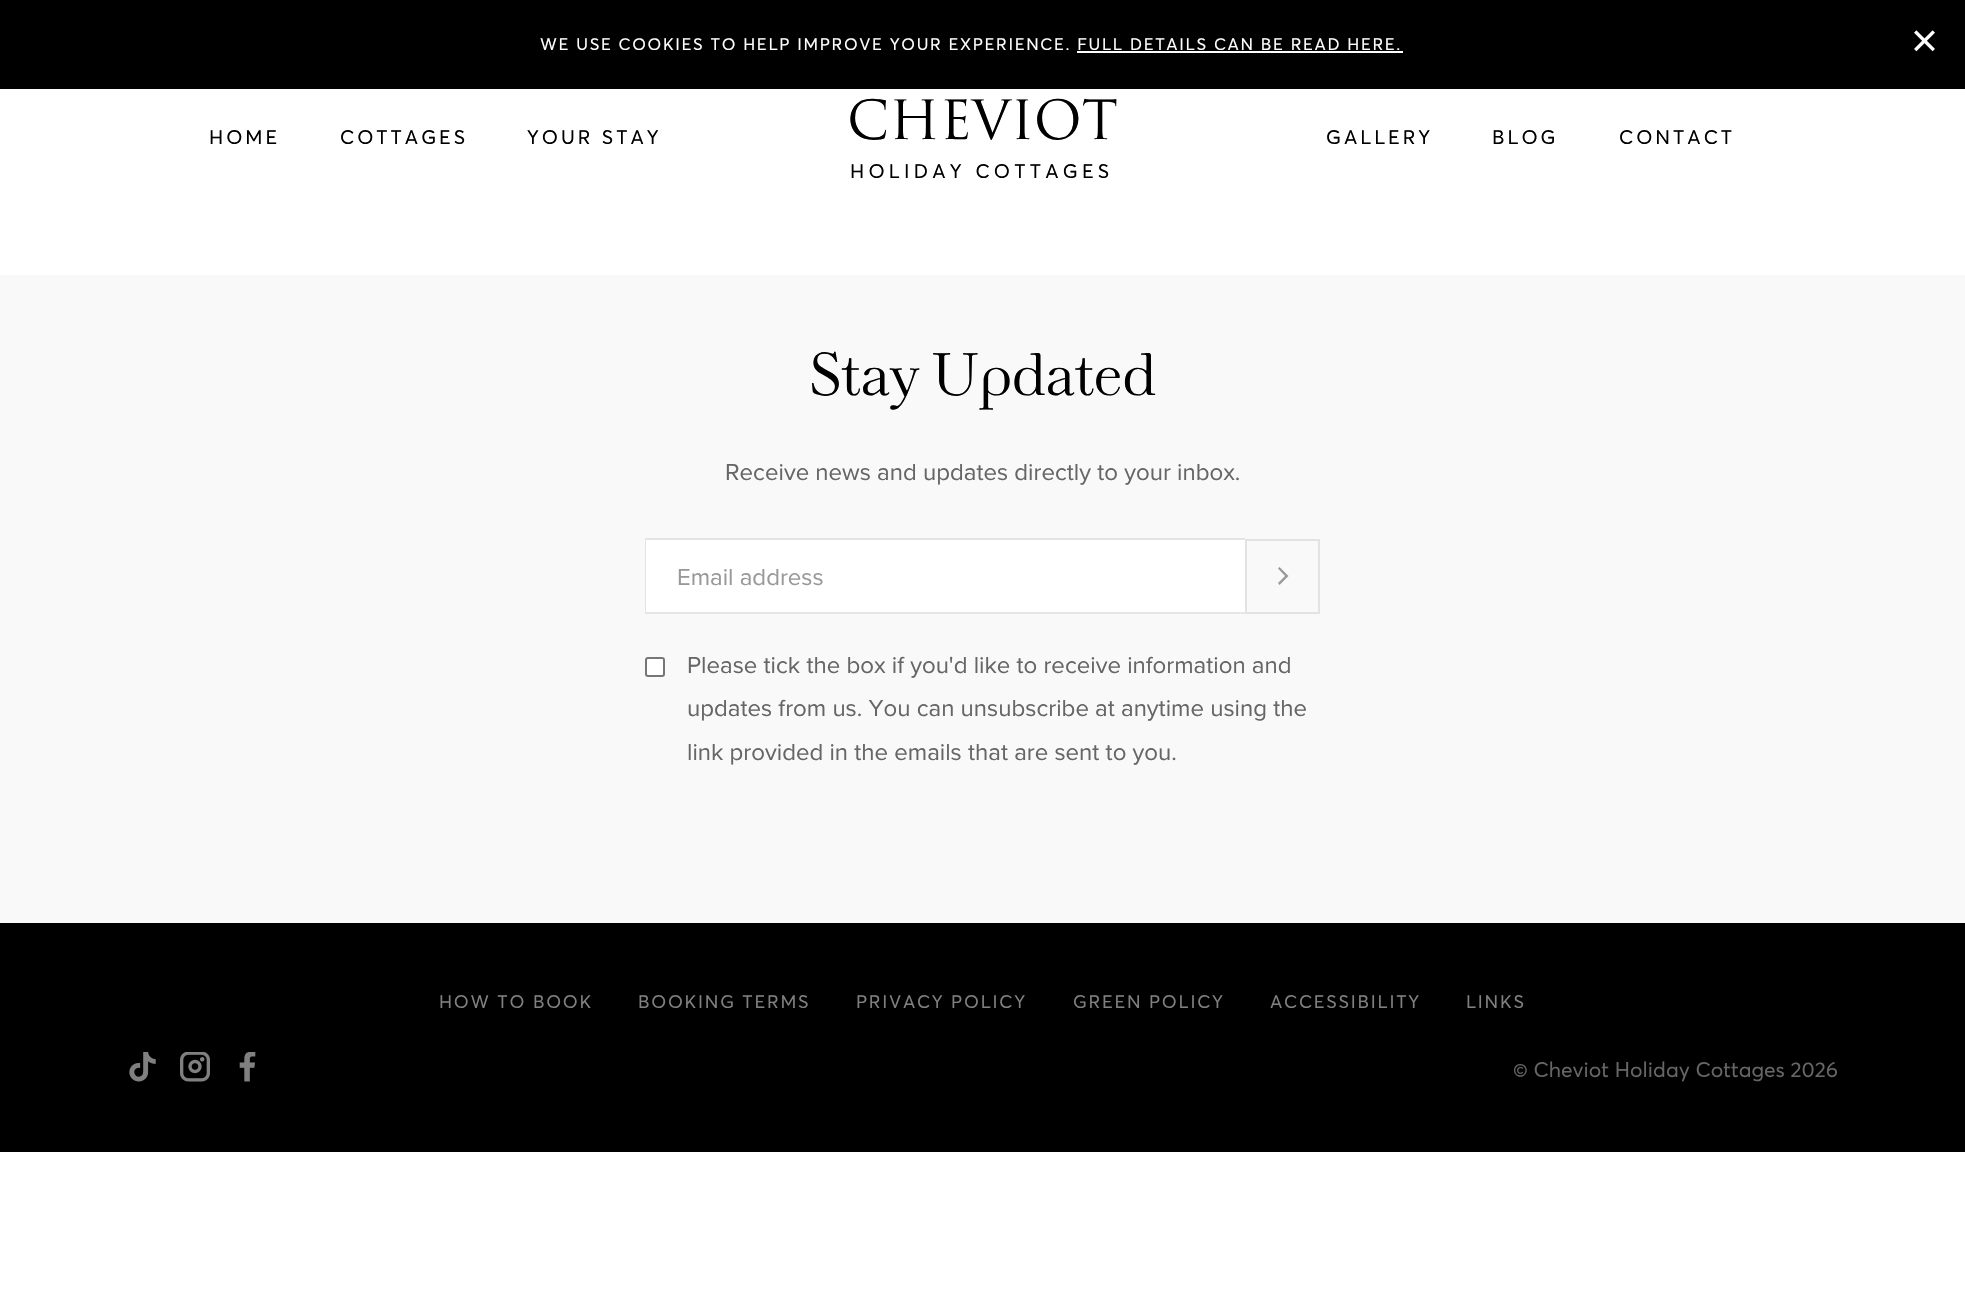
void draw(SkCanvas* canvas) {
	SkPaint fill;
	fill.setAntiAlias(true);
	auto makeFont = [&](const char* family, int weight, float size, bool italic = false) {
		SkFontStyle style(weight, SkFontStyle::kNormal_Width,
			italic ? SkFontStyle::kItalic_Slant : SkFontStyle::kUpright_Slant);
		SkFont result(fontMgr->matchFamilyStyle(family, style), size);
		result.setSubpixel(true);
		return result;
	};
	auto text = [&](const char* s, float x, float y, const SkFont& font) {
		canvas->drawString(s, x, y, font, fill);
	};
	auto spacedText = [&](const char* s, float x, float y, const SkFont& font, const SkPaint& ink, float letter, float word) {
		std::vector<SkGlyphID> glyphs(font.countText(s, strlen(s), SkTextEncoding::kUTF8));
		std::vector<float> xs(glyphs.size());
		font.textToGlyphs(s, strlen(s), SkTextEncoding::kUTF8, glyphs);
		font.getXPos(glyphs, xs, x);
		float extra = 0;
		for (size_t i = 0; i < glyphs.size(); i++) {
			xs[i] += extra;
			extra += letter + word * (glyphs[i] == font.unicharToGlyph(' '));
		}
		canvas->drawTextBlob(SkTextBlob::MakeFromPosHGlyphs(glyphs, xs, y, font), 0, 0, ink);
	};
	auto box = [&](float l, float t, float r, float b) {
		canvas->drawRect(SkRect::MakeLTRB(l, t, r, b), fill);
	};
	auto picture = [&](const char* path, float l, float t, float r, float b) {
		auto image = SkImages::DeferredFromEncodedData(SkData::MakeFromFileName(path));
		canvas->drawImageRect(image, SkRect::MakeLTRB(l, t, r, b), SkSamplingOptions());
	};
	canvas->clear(0xFFFFFFFF);
	fill.setColor(0xFF000000);
	box(0, 0, 1965, 89);
	fill.setColor(0xFFFFFFFF);
	box(1077, 51, 1403, 53);
	picture("image0.png", 1914, 30, 1935, 52);
	fill.setColor(0xFFF9F9F9);
	box(0, 275, 1965, 923);
	fill.setStyle(SkPaint::kStroke_Style);
	fill.setStrokeWidth(2);
	fill.setColor(0xFFE3E3E3);
	canvas->drawRect(SkRect::MakeLTRB(1246, 540, 1319, 613), fill);
	fill.setStyle(SkPaint::kFill_Style);
	fill.setColor(0xFF999999);
	canvas->drawPath(SkPathBuilder().moveTo(1285, 576).lineTo(1278, 568.5f).lineTo(1279.5f, 567).lineTo(1288.5f, 576).lineTo(1279.5f, 585).lineTo(1278, 583).close().detach(), fill);
	fill.setColor(0xFFFFFFFF);
	box(645, 539, 1245, 614);
	fill.setColor(0x80CCCCCC);
	canvas->drawPath(SkPathBuilder().moveTo(645, 538).lineTo(1245, 538).lineTo(1245, 540).lineTo(646, 540).close().detach(), fill);
	fill.setColor(0xFFE6E6E6);
	canvas->drawPath(SkPathBuilder().moveTo(1245, 614).lineTo(645, 614).lineTo(646, 612).lineTo(1245, 612).close().detach(), fill);
	fill.setColor(0x80CCCCCC);
	canvas->drawPath(SkPathBuilder().moveTo(645, 614).lineTo(645, 538).lineTo(646, 540).lineTo(646, 612).close().detach(), fill);
	fill.setColor(0xFFFFFFFF);
	canvas->drawRoundRect(SkRect::MakeLTRB(646, 658, 664, 676), 2, 2, fill);
	fill.setStyle(SkPaint::kStroke_Style);
	fill.setColor(0xFF767676);
	canvas->drawRoundRect(SkRect::MakeLTRB(646, 658, 664, 676), 2, 2, fill);
	fill.setStyle(SkPaint::kFill_Style);
	fill.setColor(0xFF000000);
	box(0, 923, 1965, 1152);
	picture("image1.png", 129, 1052, 156, 1082);
	picture("image2.png", 180, 1052, 210, 1082);
	picture("image3.png", 239, 1052, 256, 1082);
	auto font1 = makeFont("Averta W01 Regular", 400, 16.5f);
	fill.setColor(0xFFFFFFFF);
	spacedText("WE USE COOKIES TO HELP IMPROVE YOUR EXPERIENCE. FULL DETAILS CAN BE READ HERE.", 540, 50, font1, fill, 1.65f, 0);
	auto font2 = makeFont("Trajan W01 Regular", 400, 52.5f);
	fill.setColor(0xFF000000);
	text("CHEVIOT", 847, 139, font2);
	auto font3 = makeFont("Averta W01 Regular", 400, 19.5f);
	spacedText("HOLIDAY COTTAGES", 850, 178, font3, fill, 4.25f, 0);
	spacedText("HOME", 209, 144, font3, fill, 3, 0);
	spacedText("COTTAGES", 340, 144, font3, fill, 3, 0);
	spacedText("YOUR STAY", 527, 144, font3, fill, 3, 0);
	spacedText("GALLERY", 1326, 144, font3, fill, 3, 0);
	spacedText("BLOG", 1492, 144, font3, fill, 3, 0);
	spacedText("CONTACT", 1619, 144, font3, fill, 3, 0);
	auto font4 = makeFont("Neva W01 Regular", 400, 60);
	text("Stay Updated", 809, 395, font4);
	auto font5 = makeFont("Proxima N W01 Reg", 400, 24);
	fill.setColor(0xFF666666);
	text("Receive news and updates directly to your inbox.", 725, 480, font5);
	fill.setColor(0xFF999999);
	text("Email address", 677, 585, font5);
	fill.setColor(0xFF666666);
	text("Please tick the box if you'd like to receive information and", 687, 673, font5);
	text("updates from us. You can unsubscribe at anytime using the", 687, 716, font5);
	text("link provided in the emails that are sent to you.", 687, 760, font5);
	auto font6 = makeFont("Averta W01 Regular", 400, 18);
	fill.setColor(0xFF808080);
	spacedText("HOW TO BOOK", 439, 1008, font6, fill, 1.75f, 0);
	spacedText("BOOKING TERMS", 638, 1008, font6, fill, 1.75f, 0);
	spacedText("PRIVACY POLICY", 856, 1008, font6, fill, 1.75f, 0);
	spacedText("GREEN POLICY", 1073, 1008, font6, fill, 1.75f, 0);
	spacedText("ACCESSIBILITY", 1270, 1008, font6, fill, 1.75f, 0);
	spacedText("LINKS", 1466, 1008, font6, fill, 1.75f, 0);
	auto font7 = makeFont("Averta W01 Regular", 400, 21);
	fill.setColor(0xFF666666);
	text("© Cheviot Holiday Cottages 2026", 1513, 1077, font7);
}
